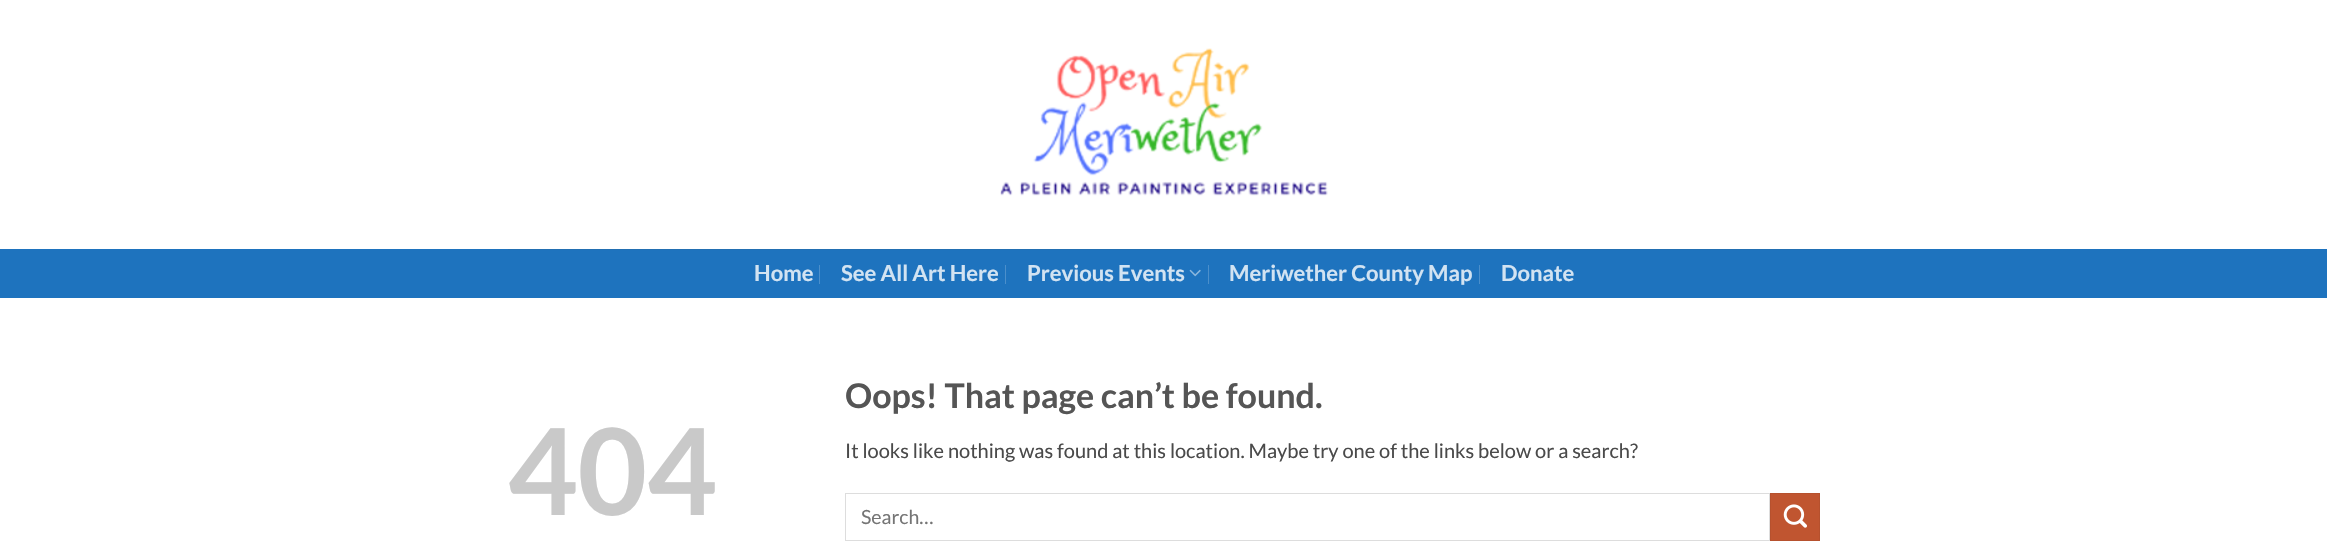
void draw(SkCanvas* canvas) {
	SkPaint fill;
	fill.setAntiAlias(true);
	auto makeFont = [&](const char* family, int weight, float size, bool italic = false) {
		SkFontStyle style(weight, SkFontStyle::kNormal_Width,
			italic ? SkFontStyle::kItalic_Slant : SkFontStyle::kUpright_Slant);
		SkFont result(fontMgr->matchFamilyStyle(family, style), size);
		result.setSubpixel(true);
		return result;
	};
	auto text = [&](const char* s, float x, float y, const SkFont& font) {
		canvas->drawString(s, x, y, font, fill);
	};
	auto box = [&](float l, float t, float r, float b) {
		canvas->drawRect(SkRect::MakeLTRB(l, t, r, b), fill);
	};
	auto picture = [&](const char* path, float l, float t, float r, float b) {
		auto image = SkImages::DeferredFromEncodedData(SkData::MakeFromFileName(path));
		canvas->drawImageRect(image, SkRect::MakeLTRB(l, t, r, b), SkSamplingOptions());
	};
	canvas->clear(0xFFFFFFFF);
	picture("image0.png", 1000, 48, 1328, 196);
	fill.setColor(0xFF1E73BE);
	box(0, 249, 2327, 298);
	fill.setColor(0xFF226FB2);
	box(508, 249, 1820, 250);
	fill.setColor(0xFF4B8FCB);
	box(819, 265, 820, 284);
	box(1005, 265, 1006, 284);
	picture("image1.png", 1189, 269, 1201, 277);
	box(1208, 265, 1209, 284);
	box(1479, 265, 1480, 284);
	fill.setStyle(SkPaint::kStroke_Style);
	fill.setStrokeWidth(1);
	fill.setColor(0xFFDDDDDD);
	canvas->drawRect(SkRect::MakeLTRB(845.5f, 493.5f, 1769.5f, 540.5f), fill);
	fill.setStyle(SkPaint::kFill_Style);
	fill.setColor(0xFFC05530);
	canvas->drawRect(SkRect::MakeLTRB(1770.5f, 493.5f, 1819.5f, 540.5f), fill);
	fill.setStyle(SkPaint::kStroke_Style);
	fill.setColor(0xFFB6512E);
	canvas->drawRect(SkRect::MakeLTRB(1770.5f, 493.5f, 1819.5f, 540.5f), fill);
	picture("image2.png", 1783, 504, 1807, 528);
	auto font1 = makeFont("Lato", 700, 22);
	fill.setStyle(SkPaint::kFill_Style);
	fill.setColor(0xFFD2E3F2);
	text("Home", 754, 281, font1);
	text("See All Art Here", 841, 281, font1);
	text("Previous Events", 1027, 281, font1);
	text("Meriwether County Map", 1229, 281, font1);
	text("Donate", 1501, 281, font1);
	auto font2 = makeFont("Lato", 700, 120);
	fill.setColor(0xFFC9C9C9);
	text("404", 508, 515, font2);
	auto font3 = makeFont("Lato", 700, 34);
	fill.setColor(0xFF555555);
	text("Oops! That page can’t be found.", 845, 408, font3);
	auto font4 = makeFont("Lato", 400, 20);
	fill.setColor(0xFF4A4A4A);
	text("It looks like nothing was found at this location. Maybe try one of the links below or a search?", 845, 458, font4);
	auto font5 = makeFont("Lato", 400, 19.5f);
	fill.setColor(0xFF757575);
	text("Search…", 861, 524, font5);
}
